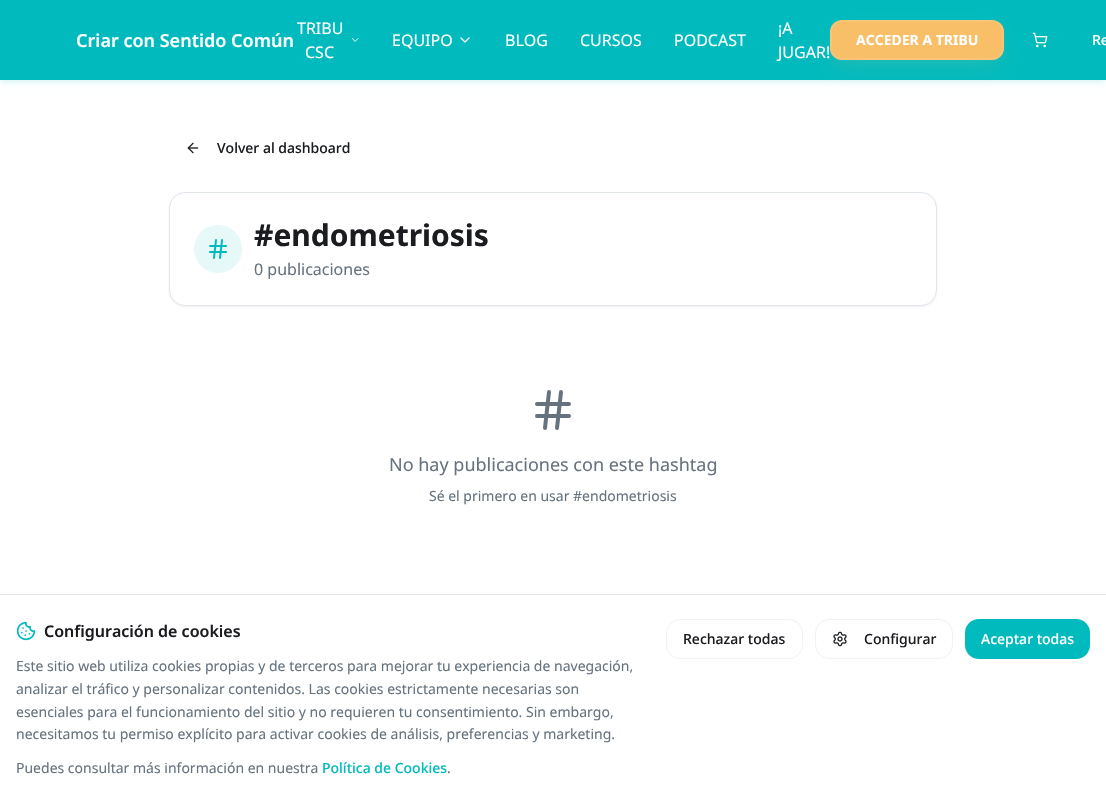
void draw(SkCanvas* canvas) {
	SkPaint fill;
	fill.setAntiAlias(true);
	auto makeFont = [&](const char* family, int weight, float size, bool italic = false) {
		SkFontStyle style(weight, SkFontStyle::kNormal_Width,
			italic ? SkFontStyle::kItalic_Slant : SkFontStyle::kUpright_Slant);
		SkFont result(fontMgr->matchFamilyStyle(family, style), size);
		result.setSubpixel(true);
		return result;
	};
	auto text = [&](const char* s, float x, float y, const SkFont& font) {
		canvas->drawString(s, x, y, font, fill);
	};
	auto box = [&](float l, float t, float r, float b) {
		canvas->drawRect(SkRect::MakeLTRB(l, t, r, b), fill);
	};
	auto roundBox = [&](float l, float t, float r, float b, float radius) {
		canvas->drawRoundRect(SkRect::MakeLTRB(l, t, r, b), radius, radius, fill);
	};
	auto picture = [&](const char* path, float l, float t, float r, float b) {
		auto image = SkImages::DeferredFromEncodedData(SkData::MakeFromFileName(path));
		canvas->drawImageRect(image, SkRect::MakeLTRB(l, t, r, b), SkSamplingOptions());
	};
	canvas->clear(0xFFFFFFFF);
	fill.setColor(0x0F00BABD);
	fill.setMaskFilter(SkMaskFilter::MakeBlur(kNormal_SkBlurStyle, 2));
	canvas->drawRect(SkRect::MakeLTRB(1, 3, 1105, 81), fill);
	fill.setMaskFilter(nullptr);
	fill.setColor(0x1A00BABD);
	fill.setMaskFilter(SkMaskFilter::MakeBlur(kNormal_SkBlurStyle, 3));
	canvas->drawRect(SkRect::MakeLTRB(1, 5, 1105, 83), fill);
	fill.setMaskFilter(nullptr);
	fill.setColor(0xFF00BABD);
	box(0, 0, 1106, 80);
	fill.setStyle(SkPaint::kStroke_Style);
	fill.setStrokeWidth(0.9f);
	fill.setStrokeCap(SkPaint::kRound_Cap);
	fill.setStrokeJoin(SkPaint::kRound_Join);
	fill.setColor(0xFFFFFFFF);
	canvas->drawPath(SkPathBuilder().moveTo(352.5f, 38.5f).lineTo(355, 41.5f).lineTo(358, 38.5f).detach(), fill);
	fill.setStrokeWidth(1.3f);
	canvas->drawPath(SkPathBuilder().moveTo(461, 38).lineTo(465, 42).lineTo(469, 38).detach(), fill);
	fill.setStyle(SkPaint::kFill_Style);
	fill.setColor(0x0DF8BE68);
	fill.setMaskFilter(SkMaskFilter::MakeBlur(kNormal_SkBlurStyle, 3));
	canvas->drawRoundRect(SkRect::MakeLTRB(832, 26, 1002, 62), 10, 10, fill);
	fill.setMaskFilter(nullptr);
	fill.setColor(0x1AF8BE68);
	fill.setMaskFilter(SkMaskFilter::MakeBlur(kNormal_SkBlurStyle, 12.5f));
	canvas->drawRoundRect(SkRect::MakeLTRB(833, 33, 1001, 67), 9, 9, fill);
	fill.setMaskFilter(nullptr);
	fill.setColor(0xFFF8BE68);
	roundBox(830, 20, 1004, 60, 12);
	fill.setStyle(SkPaint::kStroke_Style);
	fill.setStrokeWidth(2);
	fill.setStrokeCap(SkPaint::kButt_Cap);
	fill.setStrokeJoin(SkPaint::kMiter_Join);
	fill.setColor(0x1AFFFFFF);
	canvas->drawRoundRect(SkRect::MakeLTRB(831, 21, 1003, 59), 11, 11, fill);
	picture("image0.png", 1032, 32, 1048, 48);
	picture("image1.png", 187, 142, 199, 154);
	fill.setStyle(SkPaint::kFill_Style);
	fill.setColor(0x0D000000);
	fill.setMaskFilter(SkMaskFilter::MakeBlur(kNormal_SkBlurStyle, 1));
	canvas->drawRoundRect(SkRect::MakeLTRB(169, 193, 937, 307), 16, 16, fill);
	fill.setMaskFilter(nullptr);
	fill.setColor(0xFFFFFFFF);
	canvas->drawRoundRect(SkRect::MakeLTRB(169.5f, 192.5f, 936.5f, 305.5f), 15.5f, 15.5f, fill);
	fill.setStyle(SkPaint::kStroke_Style);
	fill.setStrokeWidth(1);
	fill.setColor(0xFFE0E6EB);
	canvas->drawRoundRect(SkRect::MakeLTRB(169.5f, 192.5f, 936.5f, 305.5f), 15.5f, 15.5f, fill);
	fill.setStyle(SkPaint::kFill_Style);
	fill.setColor(0xFFE6F8F8);
	canvas->drawCircle(218, 249, 24, fill);
	picture("image2.png", 209, 239, 227, 259);
	fill.setStyle(SkPaint::kStroke_Style);
	fill.setStrokeWidth(4);
	fill.setStrokeCap(SkPaint::kRound_Cap);
	fill.setStrokeJoin(SkPaint::kRound_Join);
	fill.setColor(0xFF66737F);
	canvas->drawPath(SkPathBuilder().moveTo(537, 404).lineTo(569, 404).moveTo(537, 416).lineTo(569, 416).moveTo(549, 392).lineTo(545, 428).moveTo(561, 392).lineTo(557, 428).detach(), fill);
	fill.setStyle(SkPaint::kFill_Style);
	fill.setColor(0xFFE0E6EB);
	box(0, 594, 1106, 595);
	picture("image3.png", 16, 621, 36, 641);
	fill.setStyle(SkPaint::kStroke_Style);
	fill.setStrokeWidth(1);
	fill.setStrokeCap(SkPaint::kButt_Cap);
	fill.setStrokeJoin(SkPaint::kMiter_Join);
	fill.setColor(0xFFF0F2F5);
	canvas->drawRoundRect(SkRect::MakeLTRB(666.5f, 619.5f, 802.5f, 658.5f), 13.5f, 13.5f, fill);
	canvas->drawRoundRect(SkRect::MakeLTRB(815.5f, 619.5f, 952.5f, 658.5f), 13.5f, 13.5f, fill);
	picture("image4.png", 833, 631, 847, 647);
	fill.setStyle(SkPaint::kFill_Style);
	fill.setColor(0xFF00BABD);
	roundBox(965, 619, 1090, 659, 14);
	auto font1 = makeFont("Noto Sans", 600, 18);
	fill.setColor(0xFFFFFFFF);
	text("Criar con Sentido Común", 76, 47, font1);
	auto font2 = makeFont("Noto Sans", 400, 16);
	text("TRIBU", 297, 34, font2);
	text("CSC", 305, 58, font2);
	text("EQUIPO", 392, 46, font2);
	text("BLOG", 505, 46, font2);
	text("CURSOS", 580, 46, font2);
	text("PODCAST", 674, 46, font2);
	text("¡A", 778, 34, font2);
	text("JUGAR!", 778, 58, font2);
	auto font3 = makeFont("Noto Sans", 700, 14);
	text("ACCEDER A TRIBU", 856, 45, font3);
	auto font4 = makeFont("Noto Sans", 500, 14);
	text("Re", 1092, 45, font4);
	fill.setColor(0xFF1A1C1F);
	text("Volver al dashboard", 217, 153, font4);
	auto font5 = makeFont("Noto Sans", 700, 30);
	text("#endometriosis", 254, 246, font5);
	fill.setColor(0xFF66737F);
	text("0 publicaciones", 254, 275, font2);
	auto font6 = makeFont("Noto Sans", 400, 18);
	text("No hay publicaciones con este hashtag", 389, 471, font6);
	auto font7 = makeFont("Noto Sans", 400, 14);
	text("Sé el primero en usar #endometriosis", 429, 501, font7);
	auto font8 = makeFont("Noto Sans", 600, 16);
	fill.setColor(0xFF1A1C1F);
	text("Configuración de cookies", 44, 637, font8);
	fill.setColor(0xFF66737F);
	text("Este sitio web utiliza cookies propias y de terceros para mejorar tu experiencia de navegación,", 16, 671, font7);
	text("analizar el tráfico y personalizar contenidos. Las cookies estrictamente necesarias son", 16, 694, font7);
	text("esenciales para el funcionamiento del sitio y no requieren tu consentimiento. Sin embargo,", 16, 717, font7);
	text("necesitamos tu permiso explícito para activar cookies de análisis, preferencias y marketing.", 16, 739, font7);
	text("Puedes consultar más información en nuestra", 16, 773, font7);
	fill.setColor(0xFF00BABD);
	text("Política de Cookies", 322, 773, font4);
	fill.setColor(0xFF66737F);
	text(".", 447, 773, font7);
	fill.setColor(0xFF1A1C1F);
	text("Rechazar todas", 683, 644, font4);
	text("Configurar", 864, 644, font4);
	fill.setColor(0xFFFFFFFF);
	text("Aceptar todas", 981, 644, font4);
}
